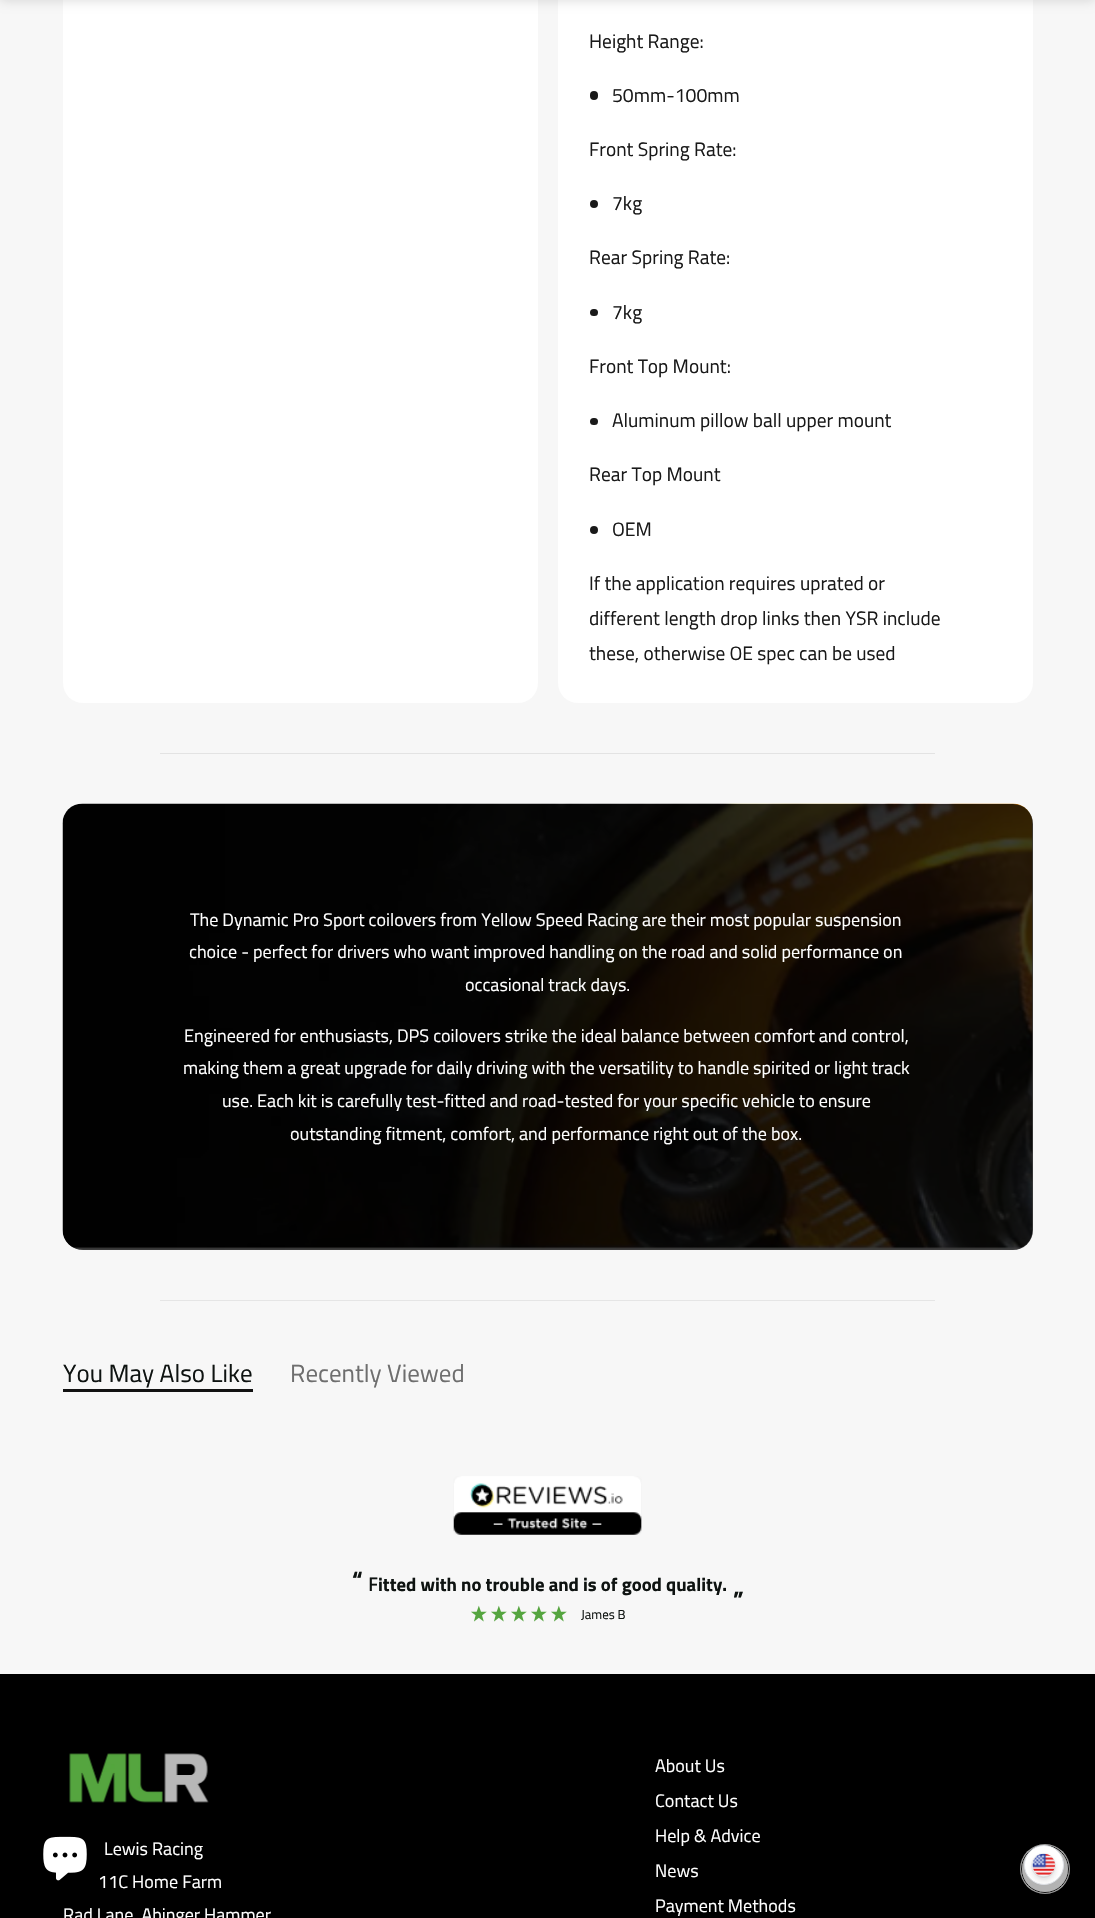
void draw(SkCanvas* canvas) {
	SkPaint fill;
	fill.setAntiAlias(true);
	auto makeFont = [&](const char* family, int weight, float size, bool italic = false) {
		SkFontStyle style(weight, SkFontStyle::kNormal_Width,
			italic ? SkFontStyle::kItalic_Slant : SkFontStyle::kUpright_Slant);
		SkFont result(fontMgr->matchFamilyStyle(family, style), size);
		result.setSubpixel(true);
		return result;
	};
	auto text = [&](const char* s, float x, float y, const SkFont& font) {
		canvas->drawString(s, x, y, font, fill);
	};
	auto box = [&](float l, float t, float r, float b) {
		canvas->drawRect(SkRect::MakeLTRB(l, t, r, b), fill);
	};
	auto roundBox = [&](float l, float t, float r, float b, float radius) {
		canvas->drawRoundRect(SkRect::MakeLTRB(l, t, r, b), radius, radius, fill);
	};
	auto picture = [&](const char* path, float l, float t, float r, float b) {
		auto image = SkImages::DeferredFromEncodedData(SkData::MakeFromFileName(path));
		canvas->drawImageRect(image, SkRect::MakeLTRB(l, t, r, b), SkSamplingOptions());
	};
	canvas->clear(0xFFF7F7F7);
	fill.setColor(0xFFFFFFFF);
	roundBox(63, -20, 538, 703, 20);
	roundBox(558, -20, 1033, 703, 20);
	fill.setColor(0x26000000);
	fill.setMaskFilter(SkMaskFilter::MakeBlur(kNormal_SkBlurStyle, 6));
	canvas->drawRect(SkRect::MakeLTRB(0, -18, 1095, 0), fill);
	fill.setMaskFilter(nullptr);
	fill.setColor(0xFF191919);
	roundBox(590, 91, 598, 100, 4);
	canvas->drawCircle(594, 204, 4, fill);
	roundBox(590, 309, 598, 316, 3.5f);
	roundBox(590, 418, 598, 425, 3.5f);
	canvas->drawCircle(594, 530, 4, fill);
	fill.setColor(0xFFE3E3E3);
	box(160, 753, 935, 754);
	picture("image0.png", 62, 803, 1033, 1250);
	fill.setColor(0xC2010101);
	roundBox(63, 804, 1033, 1250, 20);
	fill.setColor(0xFFE5E5E5);
	box(160, 1300, 935, 1301);
	fill.setColor(0xFF121212);
	box(63, 1389, 253, 1392);
	picture("image1.png", 453, 1476, 642, 1535);
	picture("image2.png", 471, 1605, 487, 1622);
	picture("image2.png", 491, 1605, 507, 1622);
	picture("image2.png", 511, 1605, 527, 1622);
	picture("image2.png", 531, 1605, 547, 1622);
	picture("image2.png", 551, 1605, 567, 1622);
	fill.setColor(0xFF000000);
	box(0, 1674, 1095, 1918);
	picture("image3.png", 69, 1753, 209, 1803);
	picture("image4.png", 43, 1836, 87, 1881);
	fill.setColor(0xFFB3B3B3);
	canvas->drawCircle(1045, 1869, 25, fill);
	fill.setStyle(SkPaint::kStroke_Style);
	fill.setStrokeWidth(1);
	fill.setColor(0x26121212);
	canvas->drawCircle(1045, 1869, 24.5f, fill);
	fill.setColor(0xFFF7F7F7);
	canvas->drawCircle(1045, 1869, 23.5f, fill);
	fill.setColor(0xFF121212);
	canvas->drawCircle(1045, 1869, 23.5f, fill);
	fill.setStyle(SkPaint::kFill_Style);
	fill.setColor(0xFFFFFFFF);
	canvas->drawCircle(1044, 1865, 19.5f, fill);
	fill.setStyle(SkPaint::kStroke_Style);
	fill.setColor(0xFFDFE2E7);
	canvas->drawCircle(1044, 1865, 19.5f, fill);
	fill.setColor(0xFFF1F1F2);
	canvas->drawCircle(1043.5f, 1865.5f, 12, fill);
	fill.setStyle(SkPaint::kFill_Style);
	fill.setColor(0x1A0A0A0B);
	fill.setMaskFilter(SkMaskFilter::MakeBlur(kNormal_SkBlurStyle, 4));
	canvas->drawRoundRect(SkRect::MakeLTRB(1033, 1859, 1055, 1881), 11, 11, fill);
	fill.setMaskFilter(nullptr);
	fill.setColor(0x0F0A0A0B);
	fill.setMaskFilter(SkMaskFilter::MakeBlur(kNormal_SkBlurStyle, 2.5f));
	canvas->drawRoundRect(SkRect::MakeLTRB(1033, 1856, 1055, 1879), 11, 11, fill);
	fill.setMaskFilter(nullptr);
	picture("image5.png", 1032, 1853, 1055, 1876);
	auto font1 = makeFont("Titillium Web", 400, 19.4f);
	fill.setColor(0xFF191919);
	text("Height Range:", 589, 48, font1);
	text("50mm-100mm", 612, 102, font1);
	text("Front Spring Rate:", 589, 156, font1);
	text("7kg", 612, 210, font1);
	text("Rear Spring Rate:", 589, 264, font1);
	text("7kg", 612, 319, font1);
	text("Front Top Mount:", 589, 373, font1);
	text("Aluminum pillow ball upper mount", 612, 427, font1);
	text("Rear Top Mount", 589, 481, font1);
	text("OEM", 612, 536, font1);
	text("If the application requires uprated or", 589, 590, font1);
	text("different length drop links then YSR include", 589, 625, font1);
	text("these, otherwise OE spec can be used", 589, 660, font1);
	auto font2 = makeFont("Titillium Web", 400, 18.1f);
	fill.setColor(0xFFFFFFFF);
	text("The Dynamic Pro Sport coilovers from Yellow Speed Racing are their most popular suspension", 190, 926, font2);
	text("choice - perfect for drivers who want improved handling on the road and solid performance on", 189, 958, font2);
	text("occasional track days.", 465, 991, font2);
	text("Engineered for enthusiasts, DPS coilovers strike the ideal balance between comfort and control,", 184, 1042, font2);
	text("making them a great upgrade for daily driving with the versatility to handle spirited or light track", 183, 1074, font2);
	text("use. Each kit is carefully test-fitted and road-tested for your specific vehicle to ensure", 222, 1107, font2);
	text("outstanding fitment, comfort, and performance right out of the box.", 290, 1140, font2);
	auto font3 = makeFont("Titillium Web", 400, 25);
	fill.setColor(0xFF0E1311);
	text("You May Also Like", 63, 1382, font3);
	fill.setColor(0xFF6E6E6E);
	text("Recently Viewed", 290, 1382, font3);
	auto font4 = makeFont("Titillium Web", 700, 24);
	fill.setColor(0xFF0E1311);
	text("“", 352, 1588, font4);
	auto font5 = makeFont("Noto Sans", 500, 18.75f);
	text("F", 368, 1591, font5);
	auto font6 = makeFont("Titillium Web", 700, 18.75f);
	text("itted with no trouble and is of good quality.", 378, 1591, font6);
	text("”", 733, 1608, font4);
	auto font7 = makeFont("Titillium Web", 400, 13);
	text("James B", 581, 1619, font7);
	fill.setColor(0xFFFFFFFF);
	text("Lewis Racing", 104, 1855, font2);
	text("11C Home Farm", 98, 1888, font2);
	text("Rad Lane, Abinger Hammer", 63, 1921, font2);
	text("About Us", 655, 1772, font2);
	text("Contact Us", 655, 1807, font2);
	text("Help & Advice", 655, 1842, font2);
	text("News", 655, 1877, font2);
	text("Payment Methods", 655, 1912, font2);
}
